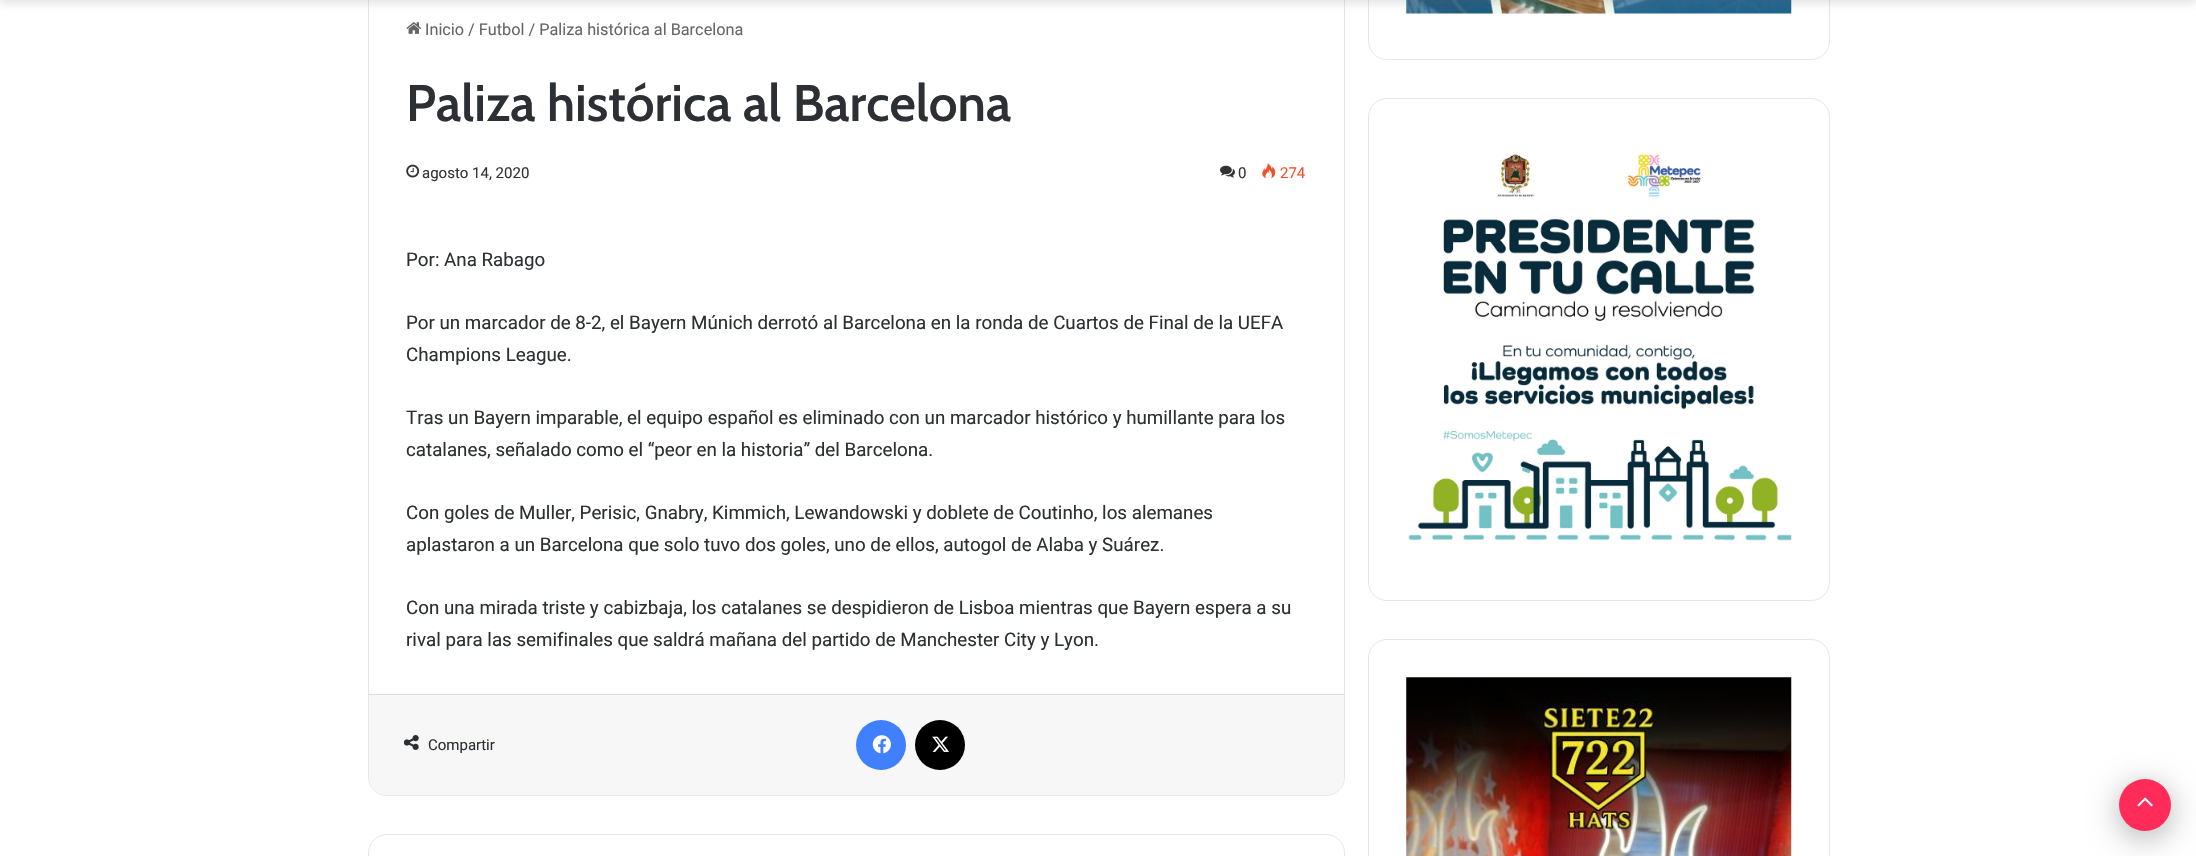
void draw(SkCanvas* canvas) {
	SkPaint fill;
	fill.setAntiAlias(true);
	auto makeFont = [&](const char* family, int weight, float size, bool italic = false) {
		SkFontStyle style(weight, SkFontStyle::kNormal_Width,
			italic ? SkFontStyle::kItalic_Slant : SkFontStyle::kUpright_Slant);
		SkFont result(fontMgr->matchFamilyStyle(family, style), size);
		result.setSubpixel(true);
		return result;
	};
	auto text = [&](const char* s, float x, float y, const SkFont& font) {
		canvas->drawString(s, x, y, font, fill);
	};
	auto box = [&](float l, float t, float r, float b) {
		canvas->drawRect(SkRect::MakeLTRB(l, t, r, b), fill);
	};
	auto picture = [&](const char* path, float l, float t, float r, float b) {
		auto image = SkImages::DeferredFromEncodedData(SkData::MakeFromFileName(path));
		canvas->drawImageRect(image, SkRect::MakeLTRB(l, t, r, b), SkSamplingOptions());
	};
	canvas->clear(0xFFFFFFFF);
	fill.setStyle(SkPaint::kStroke_Style);
	fill.setStrokeWidth(1);
	fill.setColor(0xFFE6E6E6);
	canvas->drawRoundRect(SkRect::MakeLTRB(368.5f, -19.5f, 1344.5f, 795.5f), 18.5f, 18.5f, fill);
	canvas->drawRoundRect(SkRect::MakeLTRB(1368.5f, -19.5f, 1829.5f, 59.5f), 18.5f, 18.5f, fill);
	picture("image7.png", 1406, 0, 1792, 14);
	fill.setStyle(SkPaint::kFill_Style);
	fill.setColor(0x33636363);
	fill.setMaskFilter(SkMaskFilter::MakeBlur(kNormal_SkBlurStyle, 5));
	canvas->drawRect(SkRect::MakeLTRB(0, -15, 2196, 3), fill);
	fill.setMaskFilter(nullptr);
	picture("image0.png", 406, 22, 421, 34);
	picture("image1.png", 406, 164, 420, 178);
	picture("image2.png", 1220, 165, 1235, 178);
	picture("image3.png", 1262, 163, 1276, 179);
	fill.setColor(0xFFF7F7F7);
	canvas->drawPath(SkPathBuilder().moveTo(369, 694).lineTo(1344, 694).lineTo(1344, 776).cubicTo(1344, 786.5f, 1335.5f, 795, 1325, 795).lineTo(388, 795).cubicTo(377.5f, 795, 369, 786.5f, 369, 776).close().detach(), fill);
	fill.setColor(0xFFDEDEDE);
	box(369, 694, 1344, 695);
	picture("image4.png", 404, 735, 419, 750);
	fill.setColor(0xFF4080FF);
	canvas->drawCircle(881, 745, 25, fill);
	picture("image5.png", 872, 735, 891, 754);
	fill.setColor(0xFF000000);
	canvas->drawCircle(940, 745, 25, fill);
	picture("image6.png", 932, 736, 949, 752);
	fill.setStyle(SkPaint::kStroke_Style);
	fill.setColor(0xFFE6E6E6);
	canvas->drawRoundRect(SkRect::MakeLTRB(368.5f, 834.5f, 1344.5f, 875.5f), 18.5f, 18.5f, fill);
	canvas->drawRoundRect(SkRect::MakeLTRB(1368.5f, 98.5f, 1829.5f, 600.5f), 18.5f, 18.5f, fill);
	picture("image8.png", 1407, 152, 1792, 541);
	canvas->drawRoundRect(SkRect::MakeLTRB(1368.5f, 639.5f, 1829.5f, 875.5f), 18.5f, 18.5f, fill);
	picture("image9.png", 1406, 677, 1792, 856);
	fill.setStyle(SkPaint::kFill_Style);
	fill.setColor(0x4D000000);
	fill.setMaskFilter(SkMaskFilter::MakeBlur(kNormal_SkBlurStyle, 15.5f));
	canvas->drawRoundRect(SkRect::MakeLTRB(2119, 785, 2171, 838), 26, 26, fill);
	fill.setMaskFilter(nullptr);
	fill.setColor(0xFFFF2B58);
	canvas->drawCircle(2145, 805, 26, fill);
	picture("image10.png", 2137, 797, 2153, 807);
	auto font1 = makeFont("Roboto", 400, 16.25f);
	fill.setColor(0xFF666666);
	text("Inicio / Futbol / Paliza histórica al Barcelona", 425, 35, font1);
	auto font2 = makeFont("Cabin", 600, 51.25f);
	fill.setColor(0xFF2C2F34);
	text("Paliza histórica al Barcelona", 406, 121, font2);
	auto font3 = makeFont("Roboto", 400, 15);
	fill.setColor(0xFF333333);
	text("agosto 14, 2020", 422, 178, font3);
	text("0", 1238, 178, font3);
	fill.setColor(0xFFF3502A);
	text("274", 1280, 178, font3);
	auto font4 = makeFont("Roboto", 400, 18.75f);
	fill.setColor(0xFF2C2F34);
	text("Por: Ana Rabago", 406, 266, font4);
	text("Por un marcador de 8-2, el Bayern Múnich derrotó al Barcelona en la ronda de Cuartos de Final de la UEFA", 406, 329, font4);
	text("Champions League.", 406, 361, font4);
	text("Tras un Bayern imparable, el equipo español es eliminado con un marcador histórico y humillante para los", 406, 424, font4);
	text("catalanes, señalado como el “peor en la historia” del Barcelona.", 406, 456, font4);
	text("Con goles de Muller, Perisic, Gnabry, Kimmich, Lewandowski y doblete de Coutinho, los alemanes", 406, 519, font4);
	text("aplastaron a un Barcelona que solo tuvo dos goles, uno de ellos, autogol de Alaba y Suárez.", 406, 551, font4);
	text("Con una mirada triste y cabizbaja, los catalanes se despidieron de Lisboa mientras que Bayern espera a su", 406, 614, font4);
	text("rival para las semifinales que saldrá mañana del partido de Manchester City y Lyon.", 406, 646, font4);
	text("Compartir", 428, 750, font3);
}
